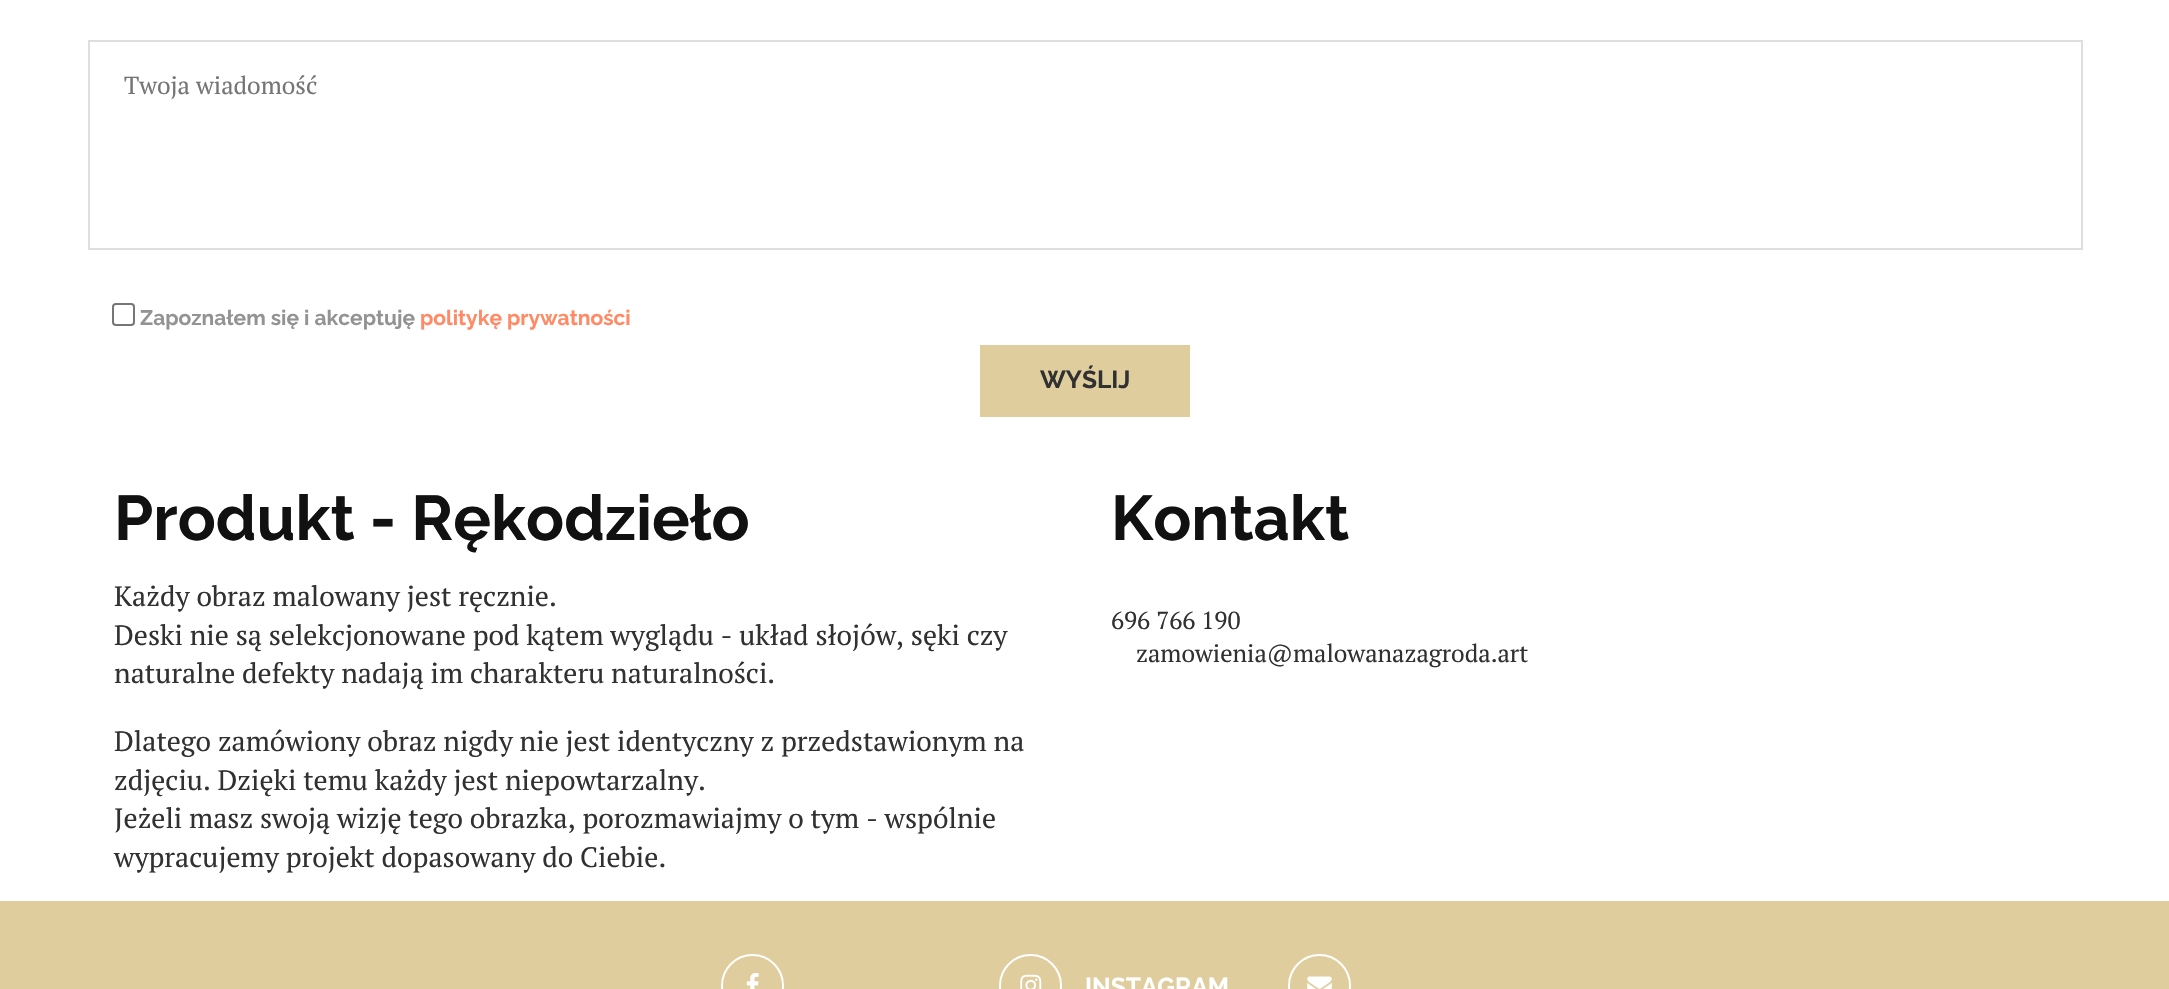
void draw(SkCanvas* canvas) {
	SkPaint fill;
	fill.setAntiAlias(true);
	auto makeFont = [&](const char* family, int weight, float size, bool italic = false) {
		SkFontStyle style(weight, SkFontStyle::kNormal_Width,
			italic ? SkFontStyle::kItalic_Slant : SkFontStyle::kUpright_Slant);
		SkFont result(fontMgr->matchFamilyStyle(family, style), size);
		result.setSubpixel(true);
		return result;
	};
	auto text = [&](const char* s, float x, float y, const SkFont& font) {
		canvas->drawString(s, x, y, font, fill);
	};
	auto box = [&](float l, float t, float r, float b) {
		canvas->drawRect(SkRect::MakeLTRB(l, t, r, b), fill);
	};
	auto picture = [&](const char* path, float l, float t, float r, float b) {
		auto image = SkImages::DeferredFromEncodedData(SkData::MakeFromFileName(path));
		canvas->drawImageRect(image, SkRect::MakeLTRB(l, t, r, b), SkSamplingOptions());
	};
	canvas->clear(0xFFFFFFFF);
	fill.setStyle(SkPaint::kStroke_Style);
	fill.setStrokeWidth(2);
	fill.setColor(0xFFDEDEDE);
	canvas->drawRect(SkRect::MakeLTRB(89, 41, 2082, 249), fill);
	fill.setColor(0xFF767676);
	canvas->drawRoundRect(SkRect::MakeLTRB(113, 304, 134, 325), 3, 3, fill);
	fill.setStyle(SkPaint::kFill_Style);
	fill.setColor(0xFFE0CD9E);
	box(980, 345, 1190, 417);
	box(0, 901, 2169, 989);
	fill.setStyle(SkPaint::kStroke_Style);
	fill.setColor(0xFFFFFFFF);
	canvas->drawCircle(752.5f, 985.5f, 30.5f, fill);
	picture("image0.png", 746, 973, 759, 989);
	canvas->drawCircle(1030.5f, 985.5f, 30.5f, fill);
	picture("image1.png", 1020, 974, 1042, 989);
	canvas->drawCircle(1319.5f, 985.5f, 30.5f, fill);
	picture("image2.png", 1307, 976, 1332, 989);
	auto font1 = makeFont("PT Serif", 400, 24.5f);
	fill.setStyle(SkPaint::kFill_Style);
	fill.setColor(0xFF757575);
	text("Twoja wiadomość", 124, 94, font1);
	auto font2 = makeFont("Raleway", 700, 21);
	fill.setColor(0xFF939393);
	text("Zapoznałem się i akceptuję", 140, 325, font2);
	fill.setColor(0xFFFF8A65);
	text("politykę prywatności", 420, 325, font2);
	auto font3 = makeFont("Raleway", 700, 24.5f);
	fill.setColor(0xFF313131);
	text("WYŚLIJ", 1040, 388, font3);
	auto font4 = makeFont("Raleway", 700, 63);
	fill.setColor(0xFF111111);
	text("Produkt - Rękodzieło", 114, 540, font4);
	auto font5 = makeFont("PT Serif", 400, 28);
	fill.setColor(0xFF313131);
	text("Każdy obraz malowany jest ręcznie.", 114, 606, font5);
	text("Deski nie są selekcjonowane pod kątem wyglądu - układ słojów, sęki czy", 114, 645, font5);
	text("naturalne defekty nadają im charakteru naturalności.", 114, 683, font5);
	text("Dlatego zamówiony obraz nigdy nie jest identyczny z przedstawionym na", 114, 751, font5);
	text("zdjęciu. Dzięki temu każdy jest niepowtarzalny.", 114, 790, font5);
	text("Jeżeli masz swoją wizję tego obrazka, porozmawiajmy o tym - wspólnie", 114, 828, font5);
	text("wypracujemy projekt dopasowany do Ciebie.", 114, 867, font5);
	fill.setColor(0xFF111111);
	text("Kontakt", 1111, 540, font4);
	fill.setColor(0xFF313131);
	text("696 766 190", 1111, 629, font1);
	text("zamowienia@malowanazagroda.art", 1136, 662, font1);
	fill.setColor(0xFFFFFFFF);
	text("INSTAGRAM", 1085, 995, font3);
}
